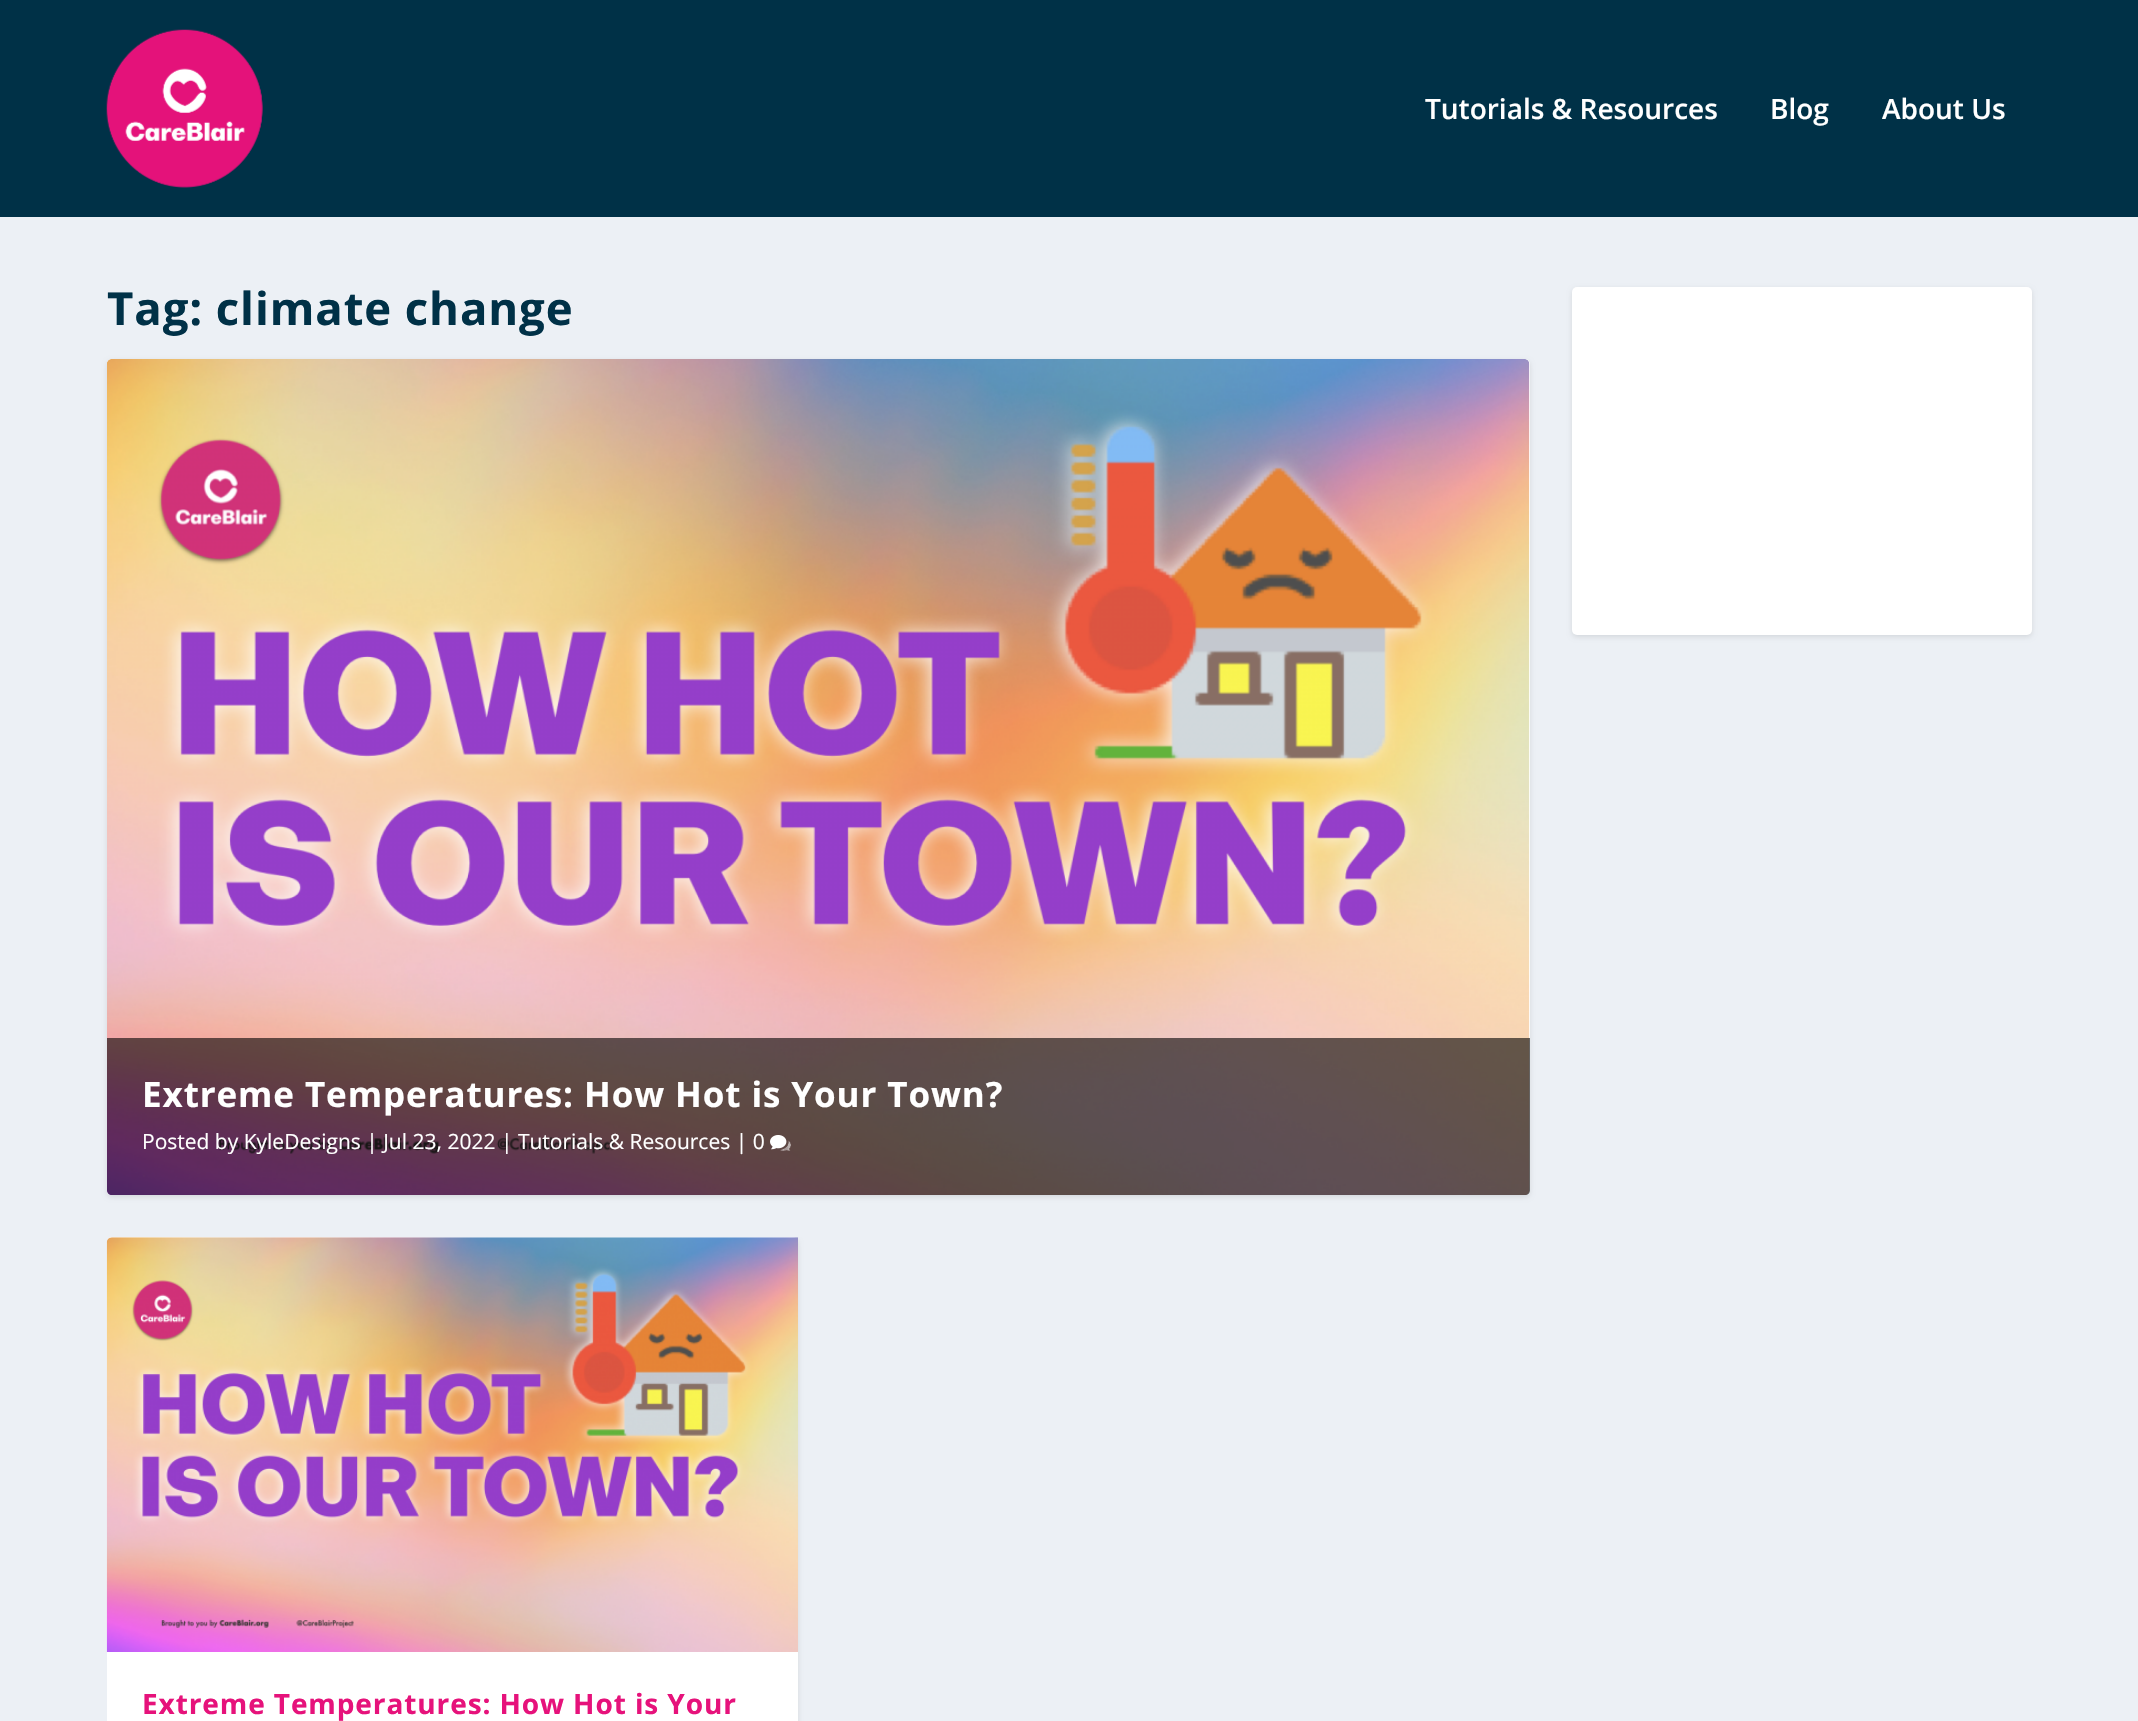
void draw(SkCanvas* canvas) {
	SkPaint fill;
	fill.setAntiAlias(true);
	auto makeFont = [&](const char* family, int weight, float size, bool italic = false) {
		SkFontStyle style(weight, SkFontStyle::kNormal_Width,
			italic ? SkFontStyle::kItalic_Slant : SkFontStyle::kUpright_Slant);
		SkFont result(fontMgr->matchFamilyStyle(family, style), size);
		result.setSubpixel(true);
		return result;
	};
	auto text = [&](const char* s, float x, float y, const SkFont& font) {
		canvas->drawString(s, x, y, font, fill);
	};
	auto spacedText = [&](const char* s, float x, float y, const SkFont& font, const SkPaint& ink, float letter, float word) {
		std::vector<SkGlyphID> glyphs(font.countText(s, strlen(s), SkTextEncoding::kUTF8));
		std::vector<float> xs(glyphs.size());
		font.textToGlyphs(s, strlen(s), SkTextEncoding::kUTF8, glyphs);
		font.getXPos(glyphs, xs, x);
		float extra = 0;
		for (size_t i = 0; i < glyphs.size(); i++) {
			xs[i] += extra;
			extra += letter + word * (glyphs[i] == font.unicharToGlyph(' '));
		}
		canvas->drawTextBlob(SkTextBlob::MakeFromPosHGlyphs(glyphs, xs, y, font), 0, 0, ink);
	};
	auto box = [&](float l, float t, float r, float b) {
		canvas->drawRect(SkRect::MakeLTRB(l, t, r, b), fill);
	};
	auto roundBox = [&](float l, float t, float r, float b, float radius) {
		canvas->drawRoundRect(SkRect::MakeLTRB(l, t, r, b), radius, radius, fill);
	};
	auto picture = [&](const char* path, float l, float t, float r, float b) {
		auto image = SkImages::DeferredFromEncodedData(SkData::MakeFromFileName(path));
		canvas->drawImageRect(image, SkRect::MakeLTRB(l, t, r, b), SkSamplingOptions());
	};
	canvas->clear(0xFFECF0F5);
	fill.setColor(0xFF003147);
	box(0, 0, 2138, 217);
	picture("image0.png", 106, 29, 263, 188);
	fill.setColor(0x1A000000);
	fill.setMaskFilter(SkMaskFilter::MakeBlur(kNormal_SkBlurStyle, 2.5f));
	canvas->drawRoundRect(SkRect::MakeLTRB(107, 361, 1530, 1197), 5, 5, fill);
	fill.setMaskFilter(nullptr);
	fill.setColor(0xFFFFFFFF);
	roundBox(107, 359, 1530, 1195, 5);
	picture("image1.png", 107, 359, 1530, 1195);
	fill.setColor(0x99000000);
	canvas->drawPath(SkPathBuilder().moveTo(107, 1038).lineTo(1530, 1038).lineTo(1530, 1190).cubicTo(1530, 1193, 1528, 1195, 1525, 1195).lineTo(112, 1195).cubicTo(109, 1195, 107, 1193, 107, 1190).close().detach(), fill);
	picture("image2.png", 770, 1135, 791, 1151);
	canvas->save();
	canvas->clipPath(SkPathBuilder().moveTo(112, 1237).lineTo(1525, 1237).cubicTo(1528, 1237, 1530, 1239, 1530, 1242).lineTo(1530, 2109).cubicTo(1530, 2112, 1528, 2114, 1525, 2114).lineTo(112, 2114).cubicTo(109, 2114, 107, 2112, 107, 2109).lineTo(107, 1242).cubicTo(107, 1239, 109, 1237, 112, 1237).close().detach(), true);
	fill.setColor(0x1A000000);
	fill.setMaskFilter(SkMaskFilter::MakeBlur(kNormal_SkBlurStyle, 2.5f));
	canvas->drawRoundRect(SkRect::MakeLTRB(107, 1239, 798, 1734), 5, 5, fill);
	fill.setMaskFilter(nullptr);
	canvas->restore();
	fill.setColor(0xFFFFFFFF);
	roundBox(107, 1237, 798, 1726, 5);
	picture("image3.png", 106, 1237, 798, 1652);
	fill.setColor(0x1A000000);
	fill.setMaskFilter(SkMaskFilter::MakeBlur(kNormal_SkBlurStyle, 2.5f));
	canvas->drawRoundRect(SkRect::MakeLTRB(1572, 289, 2032, 637), 5, 5, fill);
	fill.setMaskFilter(nullptr);
	fill.setColor(0xFFFFFFFF);
	roundBox(1572, 287, 2032, 635, 5);
	auto font1 = makeFont("Open Sans", 600, 28);
	text("Tutorials & Resources", 1425, 119, font1);
	text("Blog", 1770, 119, font1);
	text("About Us", 1882, 119, font1);
	auto font2 = makeFont("Open Sans", 700, 45.5f);
	fill.setColor(0xFF003147);
	spacedText("Tag: climate change", 107, 325, font2, fill, 0.9f, 0);
	auto font3 = makeFont("Open Sans", 700, 35);
	fill.setColor(0xFFFFFFFF);
	spacedText("Extreme Temperatures: How Hot is Your Town?", 142, 1107, font3, fill, 0.9f, 0);
	auto font4 = makeFont("Open Sans", 400, 21);
	text("Posted by KyleDesigns | Jul 23, 2022 | Tutorials & Resources | 0", 142, 1149, font4);
	auto font5 = makeFont("Open Sans", 700, 28);
	fill.setColor(0xFFE6127B);
	spacedText("Extreme Temperatures: How Hot is Your", 142, 1714, font5, fill, 0.9f, 0);
}
